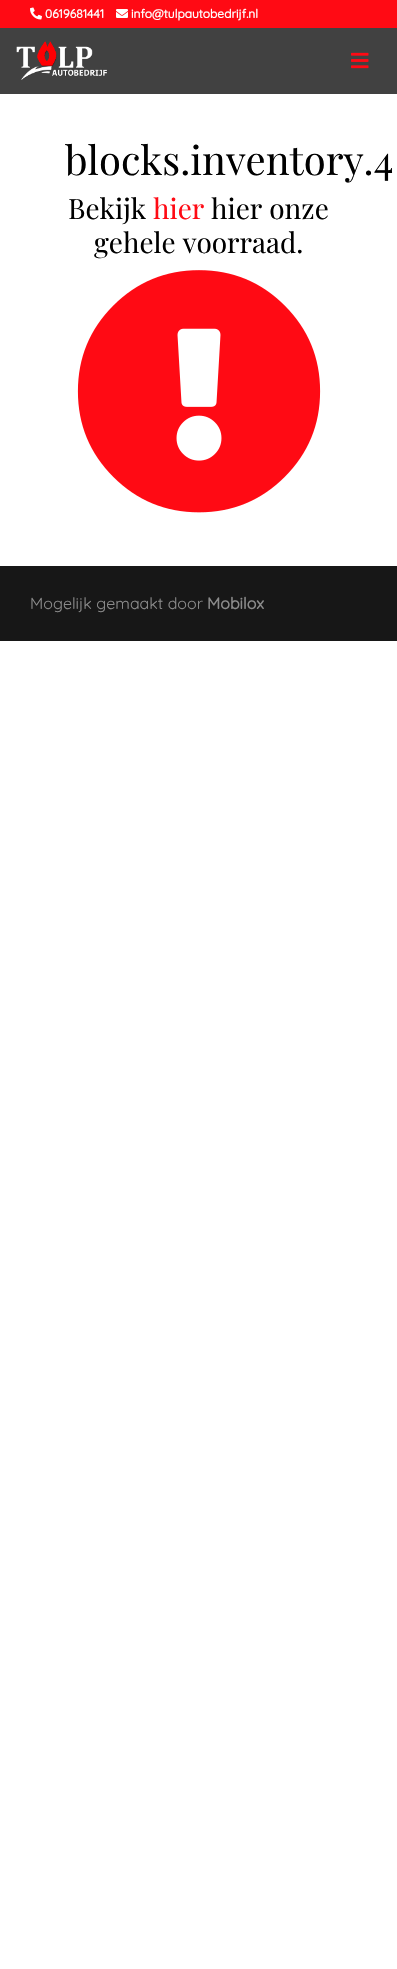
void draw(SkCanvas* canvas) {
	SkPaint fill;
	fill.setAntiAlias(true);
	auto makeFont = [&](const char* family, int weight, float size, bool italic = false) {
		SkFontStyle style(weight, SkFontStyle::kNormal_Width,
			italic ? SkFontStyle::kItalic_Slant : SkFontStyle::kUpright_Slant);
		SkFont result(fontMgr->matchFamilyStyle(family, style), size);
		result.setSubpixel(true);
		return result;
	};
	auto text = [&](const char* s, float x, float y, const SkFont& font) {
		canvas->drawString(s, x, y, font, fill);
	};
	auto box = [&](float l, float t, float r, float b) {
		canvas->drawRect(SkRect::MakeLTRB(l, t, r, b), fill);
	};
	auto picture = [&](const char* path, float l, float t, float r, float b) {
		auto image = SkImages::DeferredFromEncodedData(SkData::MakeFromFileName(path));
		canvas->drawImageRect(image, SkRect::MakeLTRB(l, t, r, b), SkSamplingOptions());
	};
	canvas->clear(0xFFFFFFFF);
	fill.setColor(0xFFFF0A14);
	box(0, 0, 397, 28);
	picture("image0.png", 30, 7, 42, 20);
	picture("image1.png", 116, 9, 128, 18);
	fill.setColor(0xFF414141);
	box(0, 28, 397, 94);
	picture("image2.png", 16, 41, 107, 80);
	picture("image3.png", 351, 52, 369, 69);
	picture("image4.png", 77, 270, 321, 513);
	fill.setColor(0xFF171717);
	box(0, 566, 397, 641);
	auto font1 = makeFont("Quicksand", 700, 12);
	fill.setColor(0xFFFFFFFF);
	text("0619681441", 45, 18, font1);
	text("info@tulpautobedrijf.nl", 131, 18, font1);
	auto font2 = makeFont("Playfair Display", 400, 40);
	fill.setColor(0xFF000000);
	text("blocks.inventory.4", 65, 175, font2);
	auto font3 = makeFont("Playfair Display", 400, 28);
	text("Bekijk", 68, 219, font3);
	fill.setColor(0xFFFF0A14);
	text("hier", 153, 219, font3);
	fill.setColor(0xFF000000);
	text("hier onze", 211, 219, font3);
	text("gehele voorraad.", 94, 253, font3);
	auto font4 = makeFont("Quicksand", 300, 16);
	fill.setColor(0xFF8B8B8B);
	text("Mogelijk gemaakt door", 30, 609, font4);
	auto font5 = makeFont("Quicksand", 700, 16);
	text("Mobilox", 207, 609, font5);
}
